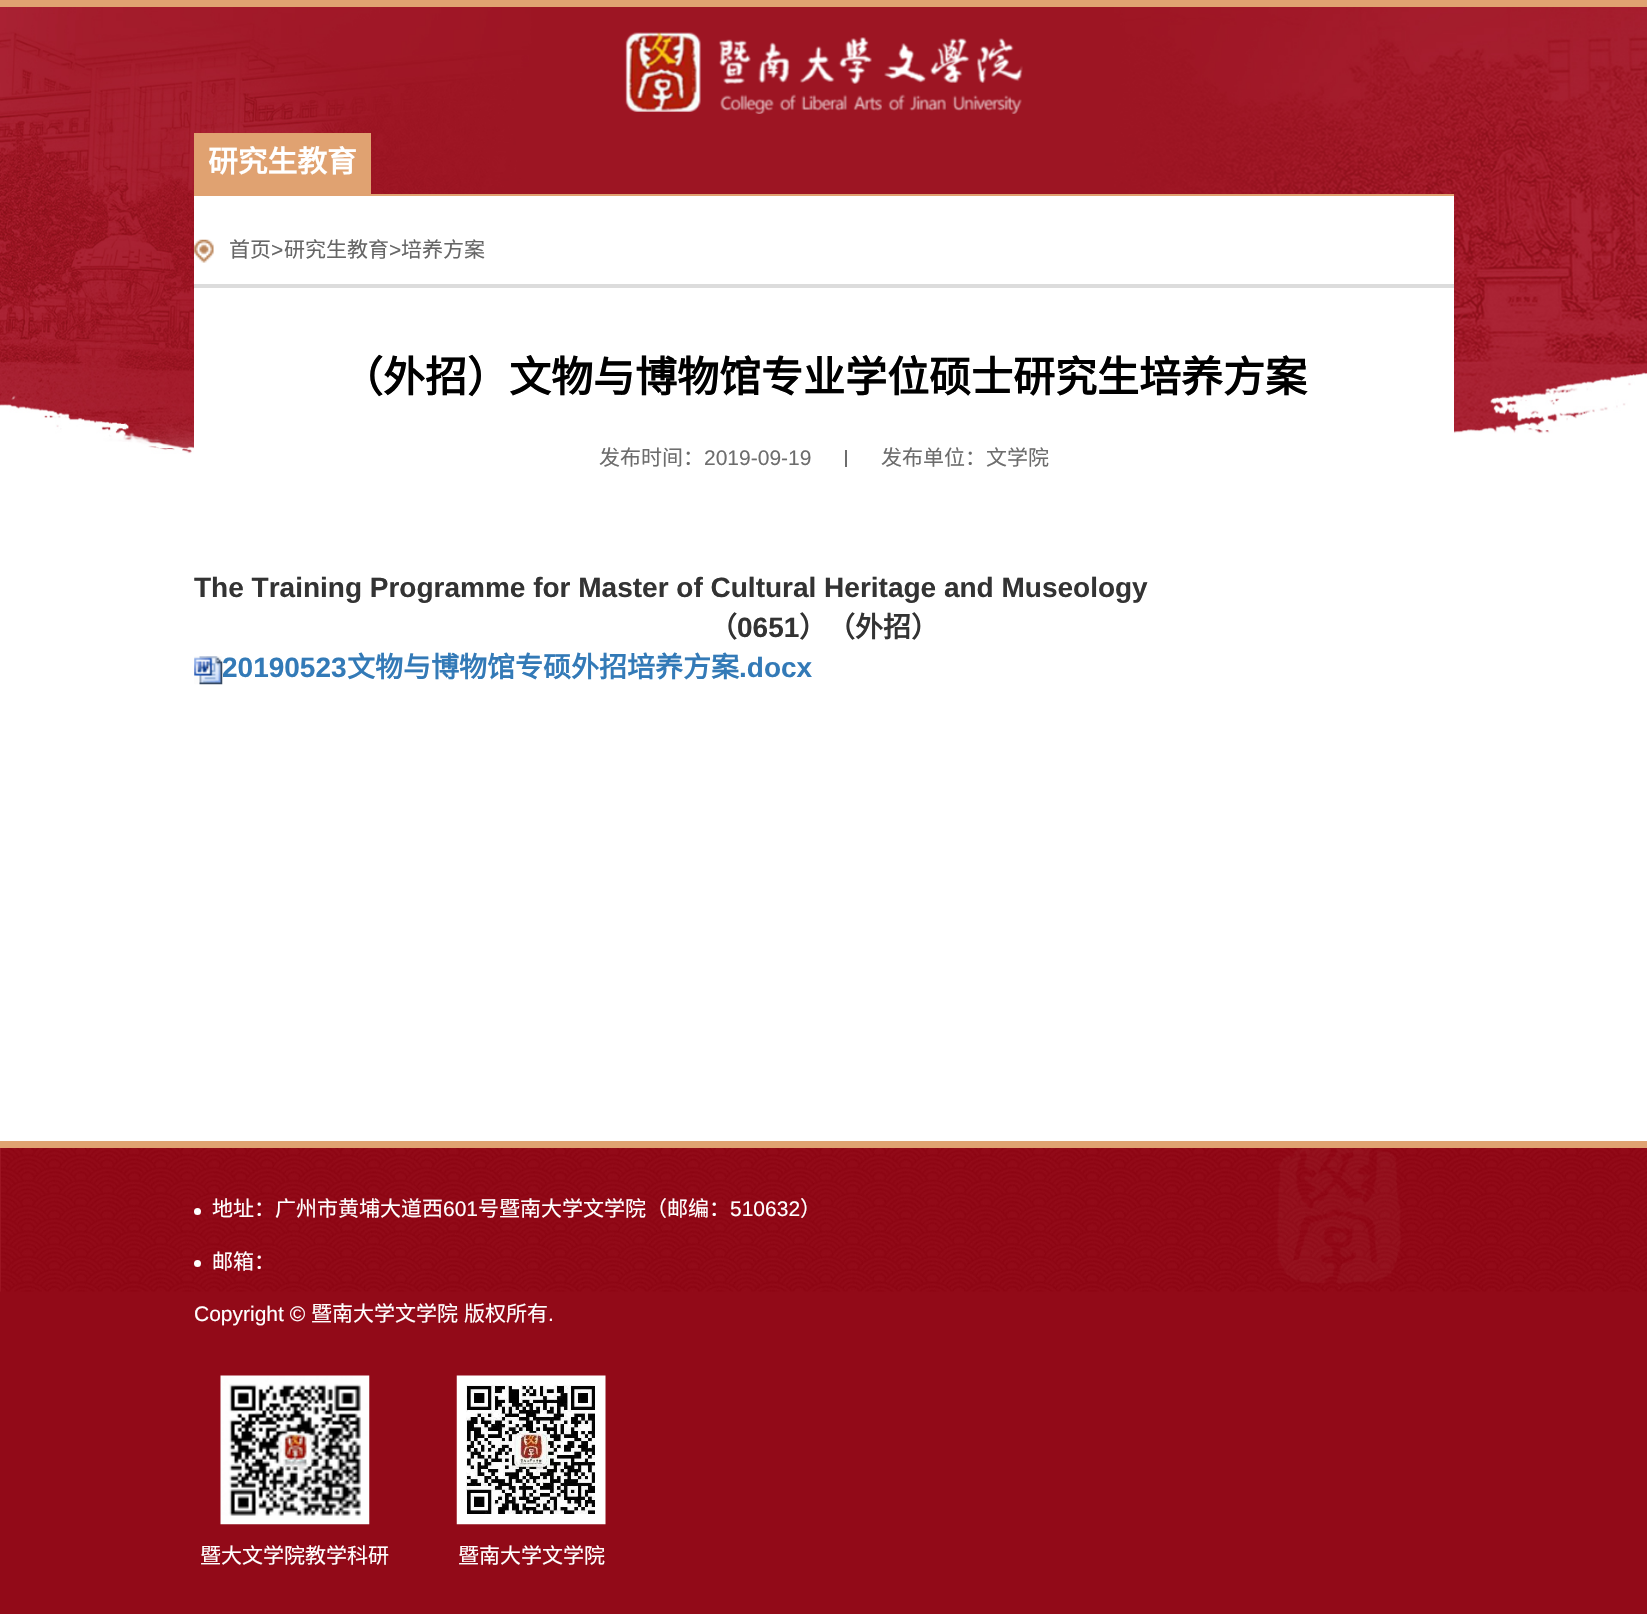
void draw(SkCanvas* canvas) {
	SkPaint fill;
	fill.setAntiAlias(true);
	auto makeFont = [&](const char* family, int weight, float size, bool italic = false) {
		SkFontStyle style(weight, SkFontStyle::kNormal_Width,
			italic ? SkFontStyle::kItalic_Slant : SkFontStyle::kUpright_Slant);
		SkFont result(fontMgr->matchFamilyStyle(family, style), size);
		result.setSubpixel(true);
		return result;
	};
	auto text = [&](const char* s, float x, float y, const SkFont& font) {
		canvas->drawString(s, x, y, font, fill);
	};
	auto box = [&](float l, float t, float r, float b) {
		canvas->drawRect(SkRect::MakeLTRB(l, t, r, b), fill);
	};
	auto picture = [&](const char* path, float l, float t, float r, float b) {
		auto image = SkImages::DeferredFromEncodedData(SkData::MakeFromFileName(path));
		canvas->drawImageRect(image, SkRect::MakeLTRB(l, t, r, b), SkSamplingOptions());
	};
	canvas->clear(0xFFFFFFFF);
	picture("image0.png", 0, 7, 1647, 501);
	fill.setColor(0xFFE0A271);
	box(0, 0, 1647, 7);
	picture("image1.png", 625, 32, 1023, 114);
	box(194, 194, 1454, 196);
	box(194, 133, 371, 194);
	fill.setColor(0xFFFFFFFF);
	box(194, 196, 1454, 501);
	picture("image2.png", 194, 239, 214, 263);
	fill.setColor(0xFFDCDCDC);
	box(194, 284, 1454, 288);
	fill.setColor(0xFF6D6D6D);
	box(845, 450, 847, 467);
	picture("image3.png", 194, 656, 223, 685);
	fill.setColor(0xFF920A18);
	box(0, 1291, 1647, 1614);
	picture("image4.png", 0, 1148, 1647, 1292);
	fill.setColor(0xFFE0A271);
	box(0, 1141, 1647, 1148);
	fill.setColor(0xFFFFFFFF);
	canvas->drawCircle(197.5f, 1211.5f, 3.5f, fill);
	canvas->drawCircle(197.5f, 1263.5f, 3.5f, fill);
	picture("image5.png", 220, 1375, 370, 1525);
	picture("image6.png", 456, 1375, 606, 1525);
	auto font1 = makeFont("Noto Sans CJK SC", 700, 29.75f);
	text("研究生教育", 208, 172, font1);
	auto font2 = makeFont("Noto Sans CJK SC", 400, 21);
	fill.setColor(0xFF666666);
	text("首页", 229, 257, font2);
	auto font3 = makeFont("Liberation Sans", 400, 21);
	text(">", 271, 257, font3);
	text("研究生教育", 284, 257, font2);
	text(">", 389, 257, font3);
	text("培养方案", 401, 257, font2);
	auto font4 = makeFont("Noto Sans CJK SC", 700, 42);
	fill.setColor(0xFF000000);
	text("（外招）文物与博物馆专业学位硕士研究生培养方案", 341, 392, font4);
	fill.setColor(0xFF6D6D6D);
	text("发布时间：", 599, 465, font2);
	text("2019-09-19", 704, 465, font3);
	text("发布单位：文学院", 881, 465, font2);
	auto font5 = makeFont("Liberation Sans", 700, 28);
	fill.setColor(0xFF333333);
	text("The Training Programme for Master of Cultural Heritage and Museology", 194, 597, font5);
	auto font6 = makeFont("Noto Sans CJK SC", 700, 28);
	text("（", 709, 637, font6);
	text("0651", 737, 637, font5);
	text("）（外招）", 799, 637, font6);
	fill.setColor(0xFF337AB7);
	text("20190523", 222, 677, font5);
	text("文物与博物馆专硕外招培养方案", 347, 677, font6);
	text(".docx", 739, 677, font5);
	fill.setColor(0xFFFFFFFF);
	text("地址：广州市黄埔大道西", 212, 1216, font2);
	text("601", 443, 1216, font3);
	text("号暨南大学文学院（邮编：", 478, 1216, font2);
	text("510632", 730, 1216, font3);
	text("）", 800, 1216, font2);
	text("邮箱：", 212, 1269, font2);
	text("Copyright ©", 194, 1321, font3);
	text("暨南大学文学院", 311, 1321, font2);
	text("版权所有", 464, 1321, font2);
	text(".", 548, 1321, font3);
	text("暨大文学院教学科研", 200, 1563, font2);
	text("暨南大学文学院", 458, 1563, font2);
}
